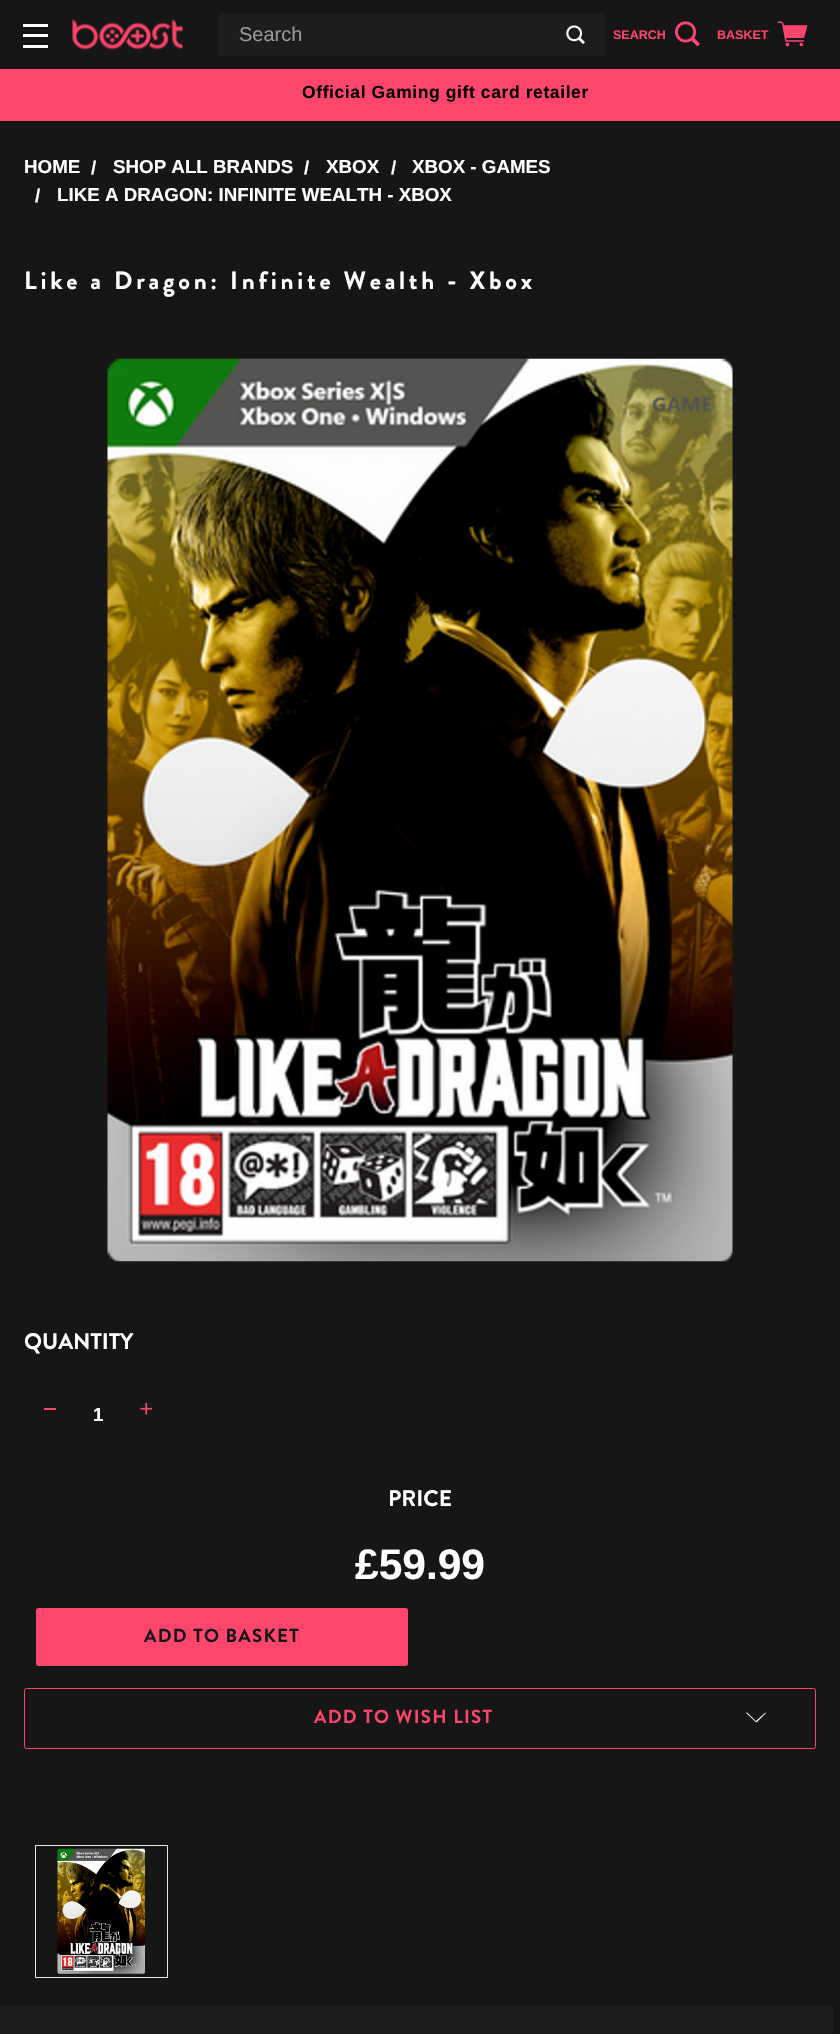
void draw(SkCanvas* canvas) {
	SkPaint fill;
	fill.setAntiAlias(true);
	auto makeFont = [&](const char* family, int weight, float size, bool italic = false) {
		SkFontStyle style(weight, SkFontStyle::kNormal_Width,
			italic ? SkFontStyle::kItalic_Slant : SkFontStyle::kUpright_Slant);
		SkFont result(fontMgr->matchFamilyStyle(family, style), size);
		result.setSubpixel(true);
		return result;
	};
	auto text = [&](const char* s, float x, float y, const SkFont& font) {
		canvas->drawString(s, x, y, font, fill);
	};
	auto spacedText = [&](const char* s, float x, float y, const SkFont& font, const SkPaint& ink, float letter, float word) {
		std::vector<SkGlyphID> glyphs(font.countText(s, strlen(s), SkTextEncoding::kUTF8));
		std::vector<float> xs(glyphs.size());
		font.textToGlyphs(s, strlen(s), SkTextEncoding::kUTF8, glyphs);
		font.getXPos(glyphs, xs, x);
		float extra = 0;
		for (size_t i = 0; i < glyphs.size(); i++) {
			xs[i] += extra;
			extra += letter + word * (glyphs[i] == font.unicharToGlyph(' '));
		}
		canvas->drawTextBlob(SkTextBlob::MakeFromPosHGlyphs(glyphs, xs, y, font), 0, 0, ink);
	};
	auto box = [&](float l, float t, float r, float b) {
		canvas->drawRect(SkRect::MakeLTRB(l, t, r, b), fill);
	};
	auto roundBox = [&](float l, float t, float r, float b, float radius) {
		canvas->drawRoundRect(SkRect::MakeLTRB(l, t, r, b), radius, radius, fill);
	};
	auto picture = [&](const char* path, float l, float t, float r, float b) {
		auto image = SkImages::DeferredFromEncodedData(SkData::MakeFromFileName(path));
		canvas->drawImageRect(image, SkRect::MakeLTRB(l, t, r, b), SkSamplingOptions());
	};
	canvas->clear(0xFF161616);
	fill.setColor(0xFFFFFFFF);
	box(23, 34, 48, 37);
	box(23, 24, 48, 27);
	box(23, 45, 48, 48);
	picture("image0.png", 72, 19, 183, 50);
	fill.setColor(0xFF1D1D1D);
	box(218, 13, 605, 56);
	picture("image1.png", 566, 25, 585, 44);
	picture("image2.png", 675, 21, 700, 47);
	picture("image3.png", 777, 21, 808, 47);
	fill.setColor(0xFFFE466C);
	box(0, 69, 840, 121);
	picture("image4.png", 107, 358, 733, 1262);
	box(44, 1408, 56, 1410);
	picture("image5.png", 140, 1402, 153, 1415);
	roundBox(36, 1608, 408, 1666, 2.5f);
	fill.setStyle(SkPaint::kStroke_Style);
	fill.setStrokeWidth(1);
	canvas->drawRoundRect(SkRect::MakeLTRB(24.5f, 1688.5f, 815.5f, 1748.5f), 2, 2, fill);
	fill.setStyle(SkPaint::kFill_Style);
	fill.setColor(0xFFFFFFFF);
	canvas->drawPath(SkPathBuilder(SkPathFillType::kEvenOdd).moveTo(756, 1721).lineTo(765.5f, 1712.5f).lineTo(766, 1713).lineTo(756.5f, 1722.5f).lineTo(746, 1713).lineTo(747, 1712.5f).close().detach(), fill);
	fill.setStyle(SkPaint::kStroke_Style);
	fill.setColor(0xFFE5E5E5);
	canvas->drawRect(SkRect::MakeLTRB(35.5f, 1845.5f, 167.5f, 1977.5f), fill);
	picture("image6.png", 57, 1848, 145, 1974);
	fill.setStyle(SkPaint::kFill_Style);
	fill.setColor(0xFF1D1D1D);
	box(0, 2006, 833, 2034);
	auto font1 = makeFont("Liberation Sans", 400, 20);
	fill.setColor(0xFF999999);
	text("Search", 239, 41, font1);
	auto font2 = makeFont("Liberation Sans", 700, 12.5f);
	fill.setColor(0xFFFE466C);
	text("SEARCH", 613, 39, font2);
	text("BASKET", 717, 39, font2);
	auto font3 = makeFont("Liberation Sans", 700, 17.5f);
	fill.setColor(0xFF000000);
	spacedText("Official Gaming gift card retailer", 302, 98, font3, fill, 0.6f, 0);
	auto font4 = makeFont("Liberation Sans", 700, 18.75f);
	fill.setColor(0xFFFFFFFF);
	text("HOME", 24, 173, font4);
	text("/", 91, 174, font4);
	text("SHOP ALL BRANDS", 113, 173, font4);
	text("/", 304, 174, font4);
	text("XBOX", 326, 173, font4);
	text("/", 391, 174, font4);
	text("XBOX - GAMES", 412, 173, font4);
	text("/", 35, 202, font4);
	text("LIKE A DRAGON: INFINITE WEALTH - XBOX", 57, 201, font4);
	auto font5 = makeFont("Brandon Grotesque", 700, 25);
	spacedText("Like a Dragon: Infinite Wealth - Xbox", 24, 289, font5, fill, 3.75f, 0);
	auto font6 = makeFont("Brandon Grotesque", 700, 22.5f);
	text("QUANTITY", 24, 1349, font6);
	text("1", 93, 1421, font4);
	text("PRICE", 388, 1506, font6);
	auto font7 = makeFont("Liberation Sans", 700, 42.5f);
	text("£59.99", 355, 1579, font7);
	auto font8 = makeFont("Brandon Grotesque", 700, 18.75f);
	fill.setColor(0xFF161616);
	spacedText("ADD TO BASKET", 144, 1642, font8, fill, 1.25f, 0);
	fill.setColor(0xFFFE466C);
	spacedText("ADD TO WISH LIST", 314, 1723, font8, fill, 1.25f, 0);
}
